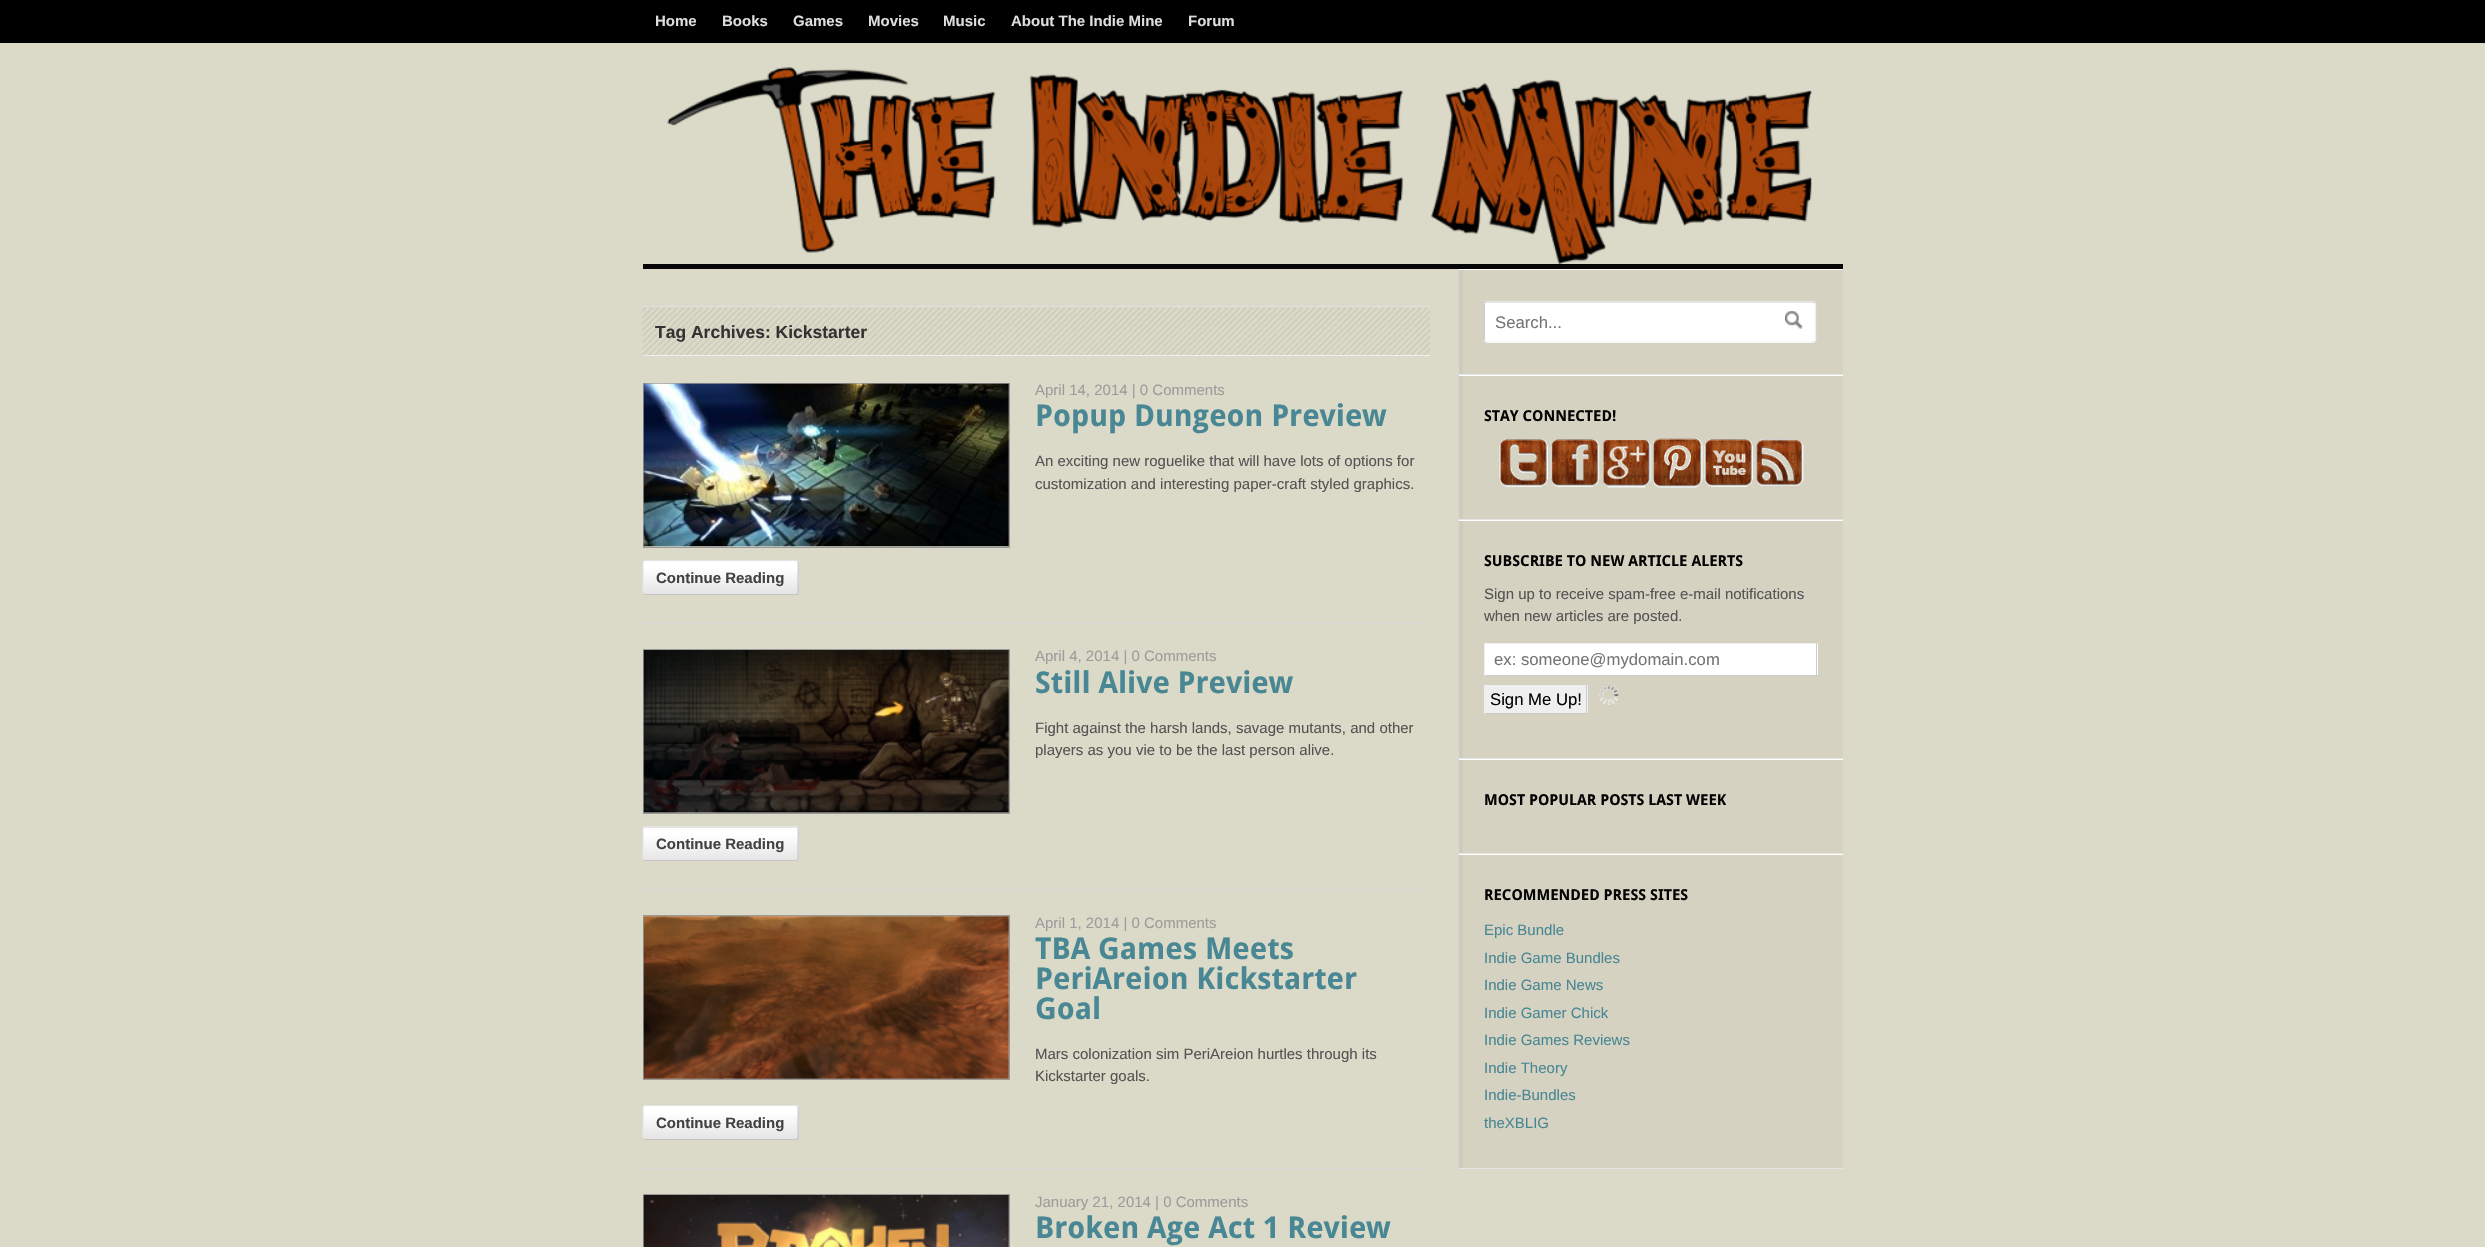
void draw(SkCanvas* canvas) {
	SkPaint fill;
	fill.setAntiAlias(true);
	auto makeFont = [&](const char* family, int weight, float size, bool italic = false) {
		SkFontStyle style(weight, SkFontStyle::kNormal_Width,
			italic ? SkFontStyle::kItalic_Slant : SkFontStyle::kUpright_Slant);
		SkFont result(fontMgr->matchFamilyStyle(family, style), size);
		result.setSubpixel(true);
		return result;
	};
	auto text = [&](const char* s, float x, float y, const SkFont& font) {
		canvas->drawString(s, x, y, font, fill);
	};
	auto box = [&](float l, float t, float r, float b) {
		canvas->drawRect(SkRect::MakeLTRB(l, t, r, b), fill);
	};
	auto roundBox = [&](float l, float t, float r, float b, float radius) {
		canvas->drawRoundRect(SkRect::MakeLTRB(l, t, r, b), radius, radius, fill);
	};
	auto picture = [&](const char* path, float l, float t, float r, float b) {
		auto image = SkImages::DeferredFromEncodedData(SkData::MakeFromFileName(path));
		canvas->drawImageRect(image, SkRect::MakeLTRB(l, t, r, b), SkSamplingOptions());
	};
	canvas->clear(0xFFDBD9C7);
	fill.setColor(0xFF000000);
	box(0, 0, 2485, 43);
	fill.setColor(0xFF060606);
	box(643, 264, 1843, 269);
	picture("image0.png", 667, 67, 1812, 264);
	picture("image1.png", 642, 307, 1430, 355);
	fill.setColor(0xFFE1E1E1);
	box(643, 306, 1430, 307);
	fill.setColor(0xFFEFEFEF);
	box(643, 355, 1430, 356);
	fill.setColor(0xFFD9D9D9);
	box(643, 623, 1430, 624);
	fill.setStyle(SkPaint::kStroke_Style);
	fill.setStrokeWidth(1);
	fill.setColor(0xFF999999);
	canvas->drawRect(SkRect::MakeLTRB(643.5f, 383.5f, 1009.5f, 547.5f), fill);
	picture("image2.png", 643, 383, 1009, 547);
	canvas->save();
	canvas->clipPath(SkPathBuilder().moveTo(645.5f, 560).lineTo(796.5f, 560).cubicTo(798, 560, 799, 561, 799, 562.5f).lineTo(799, 592.5f).cubicTo(799, 594, 798, 595, 796.5f, 595).lineTo(645.5f, 595).cubicTo(644, 595, 643, 594, 643, 592.5f).lineTo(643, 562.5f).cubicTo(643, 561, 644, 560, 645.5f, 560).close().detach(), true);
	fill.setStyle(SkPaint::kFill_Style);
	{
		const SkColor colors[] = {0xFFFFFFFF, 0xFFE5E5E5};
		const float stops[] = {0.2f, 1};
		const SkPoint ends[] = {{644, 529}, {644, 561}};
		fill.setShader(SkGradientShader::MakeLinear(ends, colors, stops, 2, SkTileMode::kClamp));
		fill.setAlpha(255);
	}
	box(643, 560, 799, 561);
	{
		const SkColor colors[] = {0xFFFFFFFF, 0xFFE5E5E5};
		const float stops[] = {0.2f, 1};
		const SkPoint ends[] = {{644, 561}, {644, 594}};
		fill.setShader(SkGradientShader::MakeLinear(ends, colors, stops, 2, SkTileMode::kClamp));
		fill.setAlpha(255);
	}
	box(643, 561, 799, 594);
	canvas->restore();
	fill.setStyle(SkPaint::kStroke_Style);
	fill.setStrokeWidth(1.2f);
	fill.setShader(nullptr);
	fill.setColor(0xFFC4C4C4);
	canvas->drawPath(SkPathBuilder().moveTo(797.5f, 561).cubicTo(799, 562.5f, 798, 575, 798, 577.5f).lineTo(798, 587.5f).cubicTo(798, 588.5f, 799.5f, 594.5f, 796, 594.5f).lineTo(645, 594.5f).lineTo(643.5f, 594).detach(), fill);
	fill.setColor(0xFFE4E4E4);
	canvas->drawPath(SkPathBuilder().moveTo(643.5f, 594).cubicTo(642, 592.5f, 643, 580, 643, 577.5f).lineTo(643, 567.5f).cubicTo(643, 566.5f, 642, 560.5f, 645, 560.5f).lineTo(796, 560.5f).lineTo(797.5f, 561).detach(), fill);
	fill.setStyle(SkPaint::kFill_Style);
	fill.setColor(0xFFD9D9D9);
	box(643, 889, 1430, 890);
	fill.setStyle(SkPaint::kStroke_Style);
	fill.setStrokeWidth(1);
	fill.setColor(0xFF999999);
	canvas->drawRect(SkRect::MakeLTRB(643.5f, 649.5f, 1009.5f, 813.5f), fill);
	picture("image3.png", 643, 650, 1009, 813);
	canvas->save();
	canvas->clipPath(SkPathBuilder().moveTo(645.5f, 826).lineTo(796.5f, 826).cubicTo(798, 826, 799, 827, 799, 828.5f).lineTo(799, 858.5f).cubicTo(799, 860, 798, 861, 796.5f, 861).lineTo(645.5f, 861).cubicTo(644, 861, 643, 860, 643, 858.5f).lineTo(643, 828.5f).cubicTo(643, 827, 644, 826, 645.5f, 826).close().detach(), true);
	fill.setStyle(SkPaint::kFill_Style);
	{
		const SkColor colors[] = {0xFFFFFFFF, 0xFFE5E5E5};
		const float stops[] = {0.2f, 1};
		const SkPoint ends[] = {{644, 795}, {644, 828}};
		fill.setShader(SkGradientShader::MakeLinear(ends, colors, stops, 2, SkTileMode::kClamp));
		fill.setAlpha(255);
	}
	box(643, 826, 799, 828);
	canvas->restore();
	{
		const SkColor colors[] = {0xFFFFFFFF, 0xFFE5E5E5};
		const float stops[] = {0.2f, 1};
		const SkPoint ends[] = {{644, 828}, {644, 860}};
		fill.setShader(SkGradientShader::MakeLinear(ends, colors, stops, 2, SkTileMode::kClamp));
		fill.setAlpha(255);
	}
	box(643, 828, 799, 860);
	fill.setStyle(SkPaint::kStroke_Style);
	fill.setStrokeWidth(1.2f);
	fill.setShader(nullptr);
	fill.setColor(0xFFC4C4C4);
	canvas->drawPath(SkPathBuilder().moveTo(797.5f, 827.5f).cubicTo(799, 829, 798, 841, 798, 844).lineTo(798, 854).cubicTo(798, 854.5f, 799.5f, 860.5f, 796, 860.5f).lineTo(645, 860.5f).lineTo(643.5f, 860).detach(), fill);
	fill.setColor(0xFFE4E4E4);
	canvas->drawPath(SkPathBuilder().moveTo(643.5f, 860).cubicTo(642, 858.5f, 643, 846.5f, 643, 844).lineTo(643, 834).cubicTo(643, 833, 642, 827, 645, 827).lineTo(796, 827).lineTo(797.5f, 827.5f).detach(), fill);
	fill.setStyle(SkPaint::kFill_Style);
	fill.setColor(0xFFD9D9D9);
	box(643, 1168, 1430, 1169);
	fill.setStyle(SkPaint::kStroke_Style);
	fill.setStrokeWidth(1);
	fill.setColor(0xFF999999);
	canvas->drawRect(SkRect::MakeLTRB(643.5f, 915.5f, 1009.5f, 1079.5f), fill);
	picture("image4.png", 643, 916, 1009, 1079);
	canvas->save();
	canvas->clipPath(SkPathBuilder().moveTo(645.5f, 1105).lineTo(796.5f, 1105).cubicTo(798, 1105, 799, 1106, 799, 1107.5f).lineTo(799, 1137.5f).cubicTo(799, 1139, 798, 1140, 796.5f, 1140).lineTo(645.5f, 1140).cubicTo(644, 1140, 643, 1139, 643, 1137.5f).lineTo(643, 1107.5f).cubicTo(643, 1106, 644, 1105, 645.5f, 1105).close().detach(), true);
	fill.setStyle(SkPaint::kFill_Style);
	{
		const SkColor colors[] = {0xFFFFFFFF, 0xFFE5E5E5};
		const float stops[] = {0.2f, 1};
		const SkPoint ends[] = {{644, 1074}, {644, 1106}};
		fill.setShader(SkGradientShader::MakeLinear(ends, colors, stops, 2, SkTileMode::kClamp));
		fill.setAlpha(255);
	}
	box(643, 1105, 799, 1106);
	{
		const SkColor colors[] = {0xFFFFFFFF, 0xFFE5E5E5};
		const float stops[] = {0.2f, 1};
		const SkPoint ends[] = {{644, 1106}, {644, 1139}};
		fill.setShader(SkGradientShader::MakeLinear(ends, colors, stops, 2, SkTileMode::kClamp));
		fill.setAlpha(255);
	}
	box(643, 1106, 799, 1139);
	canvas->restore();
	fill.setStyle(SkPaint::kStroke_Style);
	fill.setStrokeWidth(1.2f);
	fill.setShader(nullptr);
	fill.setColor(0xFFC4C4C4);
	canvas->drawPath(SkPathBuilder().moveTo(797.5f, 1106).cubicTo(799, 1107.5f, 798, 1120, 798, 1122.5f).lineTo(798, 1132.5f).cubicTo(798, 1133.5f, 799.5f, 1139.5f, 796, 1139.5f).lineTo(645, 1139.5f).lineTo(643.5f, 1139).detach(), fill);
	fill.setColor(0xFFE4E4E4);
	canvas->drawPath(SkPathBuilder().moveTo(643.5f, 1139).cubicTo(642, 1137.5f, 643, 1125, 643, 1122.5f).lineTo(643, 1112.5f).cubicTo(643, 1111.5f, 642, 1105.5f, 645, 1105.5f).lineTo(796, 1105.5f).lineTo(797.5f, 1106).detach(), fill);
	fill.setStrokeWidth(1);
	fill.setColor(0xFF999999);
	canvas->drawRect(SkRect::MakeLTRB(643.5f, 1194.5f, 1009.5f, 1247.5f), fill);
	picture("image5.png", 643, 1195, 1009, 1247);
	fill.setStyle(SkPaint::kFill_Style);
	fill.setColor(0xFFD5D2C2);
	box(1463, 270, 1843, 1168);
	fill.setColor(0xFFCFCCBC);
	box(1459, 269, 1463, 1169);
	fill.setColor(0xFFD6D7D7);
	box(1458, 269, 1459, 1169);
	fill.setColor(0xFFFFFFFF);
	box(1459, 269, 1843, 270);
	fill.setColor(0xFFE4E4E4);
	box(1459, 374, 1843, 375);
	fill.setColor(0xFFFFFFFF);
	roundBox(1484, 301, 1816, 343, 4);
	fill.setStyle(SkPaint::kStroke_Style);
	fill.setStrokeWidth(1.2f);
	fill.setColor(0xFFEFEFEF);
	canvas->drawPath(SkPathBuilder().moveTo(1814.5f, 303).cubicTo(1816.5f, 304.5f, 1815.5f, 309, 1815.5f, 310.5f).lineTo(1815.5f, 333).cubicTo(1815.5f, 335.5f, 1817, 342, 1812.5f, 342).lineTo(1487, 342).lineTo(1485.5f, 341).detach(), fill);
	fill.setColor(0xFFCCCCCC);
	canvas->drawPath(SkPathBuilder().moveTo(1485.5f, 341).cubicTo(1483.5f, 339, 1484.5f, 334.5f, 1484.5f, 333).lineTo(1484.5f, 310.5f).cubicTo(1484.5f, 308.5f, 1483, 302, 1487.5f, 302).lineTo(1813, 302).lineTo(1814.5f, 303).detach(), fill);
	fill.setStyle(SkPaint::kFill_Style);
	fill.setColor(0xFFFFFFFF);
	box(1485, 303, 1486, 341);
	picture("image6.png", 1785, 311, 1803, 329);
	box(1459, 375, 1843, 376);
	fill.setColor(0xFFE4E4E4);
	box(1459, 519, 1843, 520);
	picture("image7.png", 1499, 439, 1548, 487);
	picture("image8.png", 1550, 439, 1600, 487);
	picture("image9.png", 1603, 440, 1652, 488);
	picture("image10.png", 1653, 438, 1703, 488);
	picture("image11.png", 1704, 439, 1753, 487);
	picture("image12.png", 1756, 439, 1804, 486);
	fill.setColor(0xFFFFFFFF);
	box(1459, 520, 1843, 521);
	fill.setColor(0xFFE4E4E4);
	box(1459, 758, 1843, 759);
	fill.setColor(0xFFFFFFFF);
	box(1485, 644, 1818, 675);
	fill.setColor(0xFFEFEFEF);
	box(1484, 643, 1818, 644);
	fill.setColor(0xFFCCCCCC);
	box(1816, 643, 1817, 676);
	box(1484, 675, 1818, 676);
	fill.setColor(0xFFEFEFEF);
	box(1484, 643, 1485, 676);
	box(1485, 685, 1588, 713);
	fill.setColor(0xFFCCCCCC);
	box(1586, 685, 1587, 714);
	box(1484, 713, 1588, 714);
	fill.setColor(0xFFEFEFEF);
	box(1484, 685, 1485, 714);
	picture("image13.png", 1598, 685, 1619, 705);
	fill.setColor(0xFFFFFFFF);
	box(1459, 759, 1843, 760);
	fill.setColor(0xFFE4E4E4);
	box(1459, 853, 1843, 854);
	fill.setColor(0xFFFFFFFF);
	box(1459, 854, 1843, 855);
	fill.setColor(0xFFE4E4E4);
	box(1459, 1168, 1843, 1169);
	auto font1 = makeFont("Liberation Sans", 700, 15);
	fill.setColor(0xFFDDDDDD);
	text("Home", 655, 26, font1);
	text("Books", 722, 26, font1);
	text("Games", 793, 26, font1);
	text("Movies", 868, 26, font1);
	text("Music", 943, 26, font1);
	text("About The Indie Mine", 1011, 26, font1);
	text("Forum", 1188, 26, font1);
	auto font2 = makeFont("Liberation Sans", 700, 17.5f);
	fill.setColor(0xFF333333);
	text("Tag Archives: Kickstarter", 655, 338, font2);
	auto font3 = makeFont("Liberation Sans", 400, 15);
	fill.setColor(0xFF9C9C9C);
	text("April 14, 2014 | 0 Comments", 1035, 395, font3);
	auto font4 = makeFont("Droid Sans", 700, 30);
	fill.setColor(0xFF488793);
	text("Popup Dungeon Preview", 1035, 426, font4);
	fill.setColor(0xFF545454);
	text("An exciting new roguelike that will have lots of options for", 1035, 466, font3);
	text("customization and interesting paper-craft styled graphics.", 1035, 489, font3);
	fill.setColor(0xFF424242);
	text("Continue Reading", 656, 583, font1);
	fill.setColor(0xFF9C9C9C);
	text("April 4, 2014 | 0 Comments", 1035, 661, font3);
	fill.setColor(0xFF488793);
	text("Still Alive Preview", 1035, 693, font4);
	fill.setColor(0xFF545454);
	text("Fight against the harsh lands, savage mutants, and other", 1035, 733, font3);
	text("players as you vie to be the last person alive.", 1035, 755, font3);
	fill.setColor(0xFF424242);
	text("Continue Reading", 656, 849, font1);
	fill.setColor(0xFF9C9C9C);
	text("April 1, 2014 | 0 Comments", 1035, 928, font3);
	fill.setColor(0xFF488793);
	text("TBA Games Meets", 1035, 959, font4);
	text("PeriAreion Kickstarter", 1035, 989, font4);
	text("Goal", 1035, 1019, font4);
	fill.setColor(0xFF545454);
	text("Mars colonization sim PeriAreion hurtles through its", 1035, 1059, font3);
	text("Kickstarter goals.", 1035, 1081, font3);
	fill.setColor(0xFF424242);
	text("Continue Reading", 656, 1128, font1);
	fill.setColor(0xFF9C9C9C);
	text("January 21, 2014 | 0 Comments", 1035, 1207, font3);
	fill.setColor(0xFF488793);
	text("Broken Age Act 1 Review", 1035, 1238, font4);
	auto font5 = makeFont("Liberation Sans", 400, 16.7f);
	fill.setColor(0xFF757575);
	text("Search...", 1495, 328, font5);
	auto font6 = makeFont("Droid Sans", 700, 15);
	fill.setColor(0xFF040404);
	text("STAY CONNECTED!", 1484, 421, font6);
	text("SUBSCRIBE TO NEW ARTICLE ALERTS", 1484, 566, font6);
	fill.setColor(0xFF545454);
	text("Sign up to receive spam-free e-mail notifications", 1484, 599, font3);
	text("when new articles are posted.", 1484, 621, font3);
	fill.setColor(0xFF757575);
	text("ex: someone@mydomain.com", 1494, 665, font5);
	fill.setColor(0xFF040404);
	text("Sign Me Up!", 1490, 705, font5);
	text("MOST POPULAR POSTS LAST WEEK", 1484, 805, font6);
	text("RECOMMENDED PRESS SITES", 1484, 900, font6);
	fill.setColor(0xFF488793);
	text("Epic Bundle", 1484, 935, font3);
	text("Indie Game Bundles", 1484, 963, font3);
	text("Indie Game News", 1484, 990, font3);
	text("Indie Gamer Chick", 1484, 1018, font3);
	text("Indie Games Reviews", 1484, 1045, font3);
	text("Indie Theory", 1484, 1073, font3);
	text("Indie-Bundles", 1484, 1100, font3);
	text("theXBLIG", 1484, 1128, font3);
}
